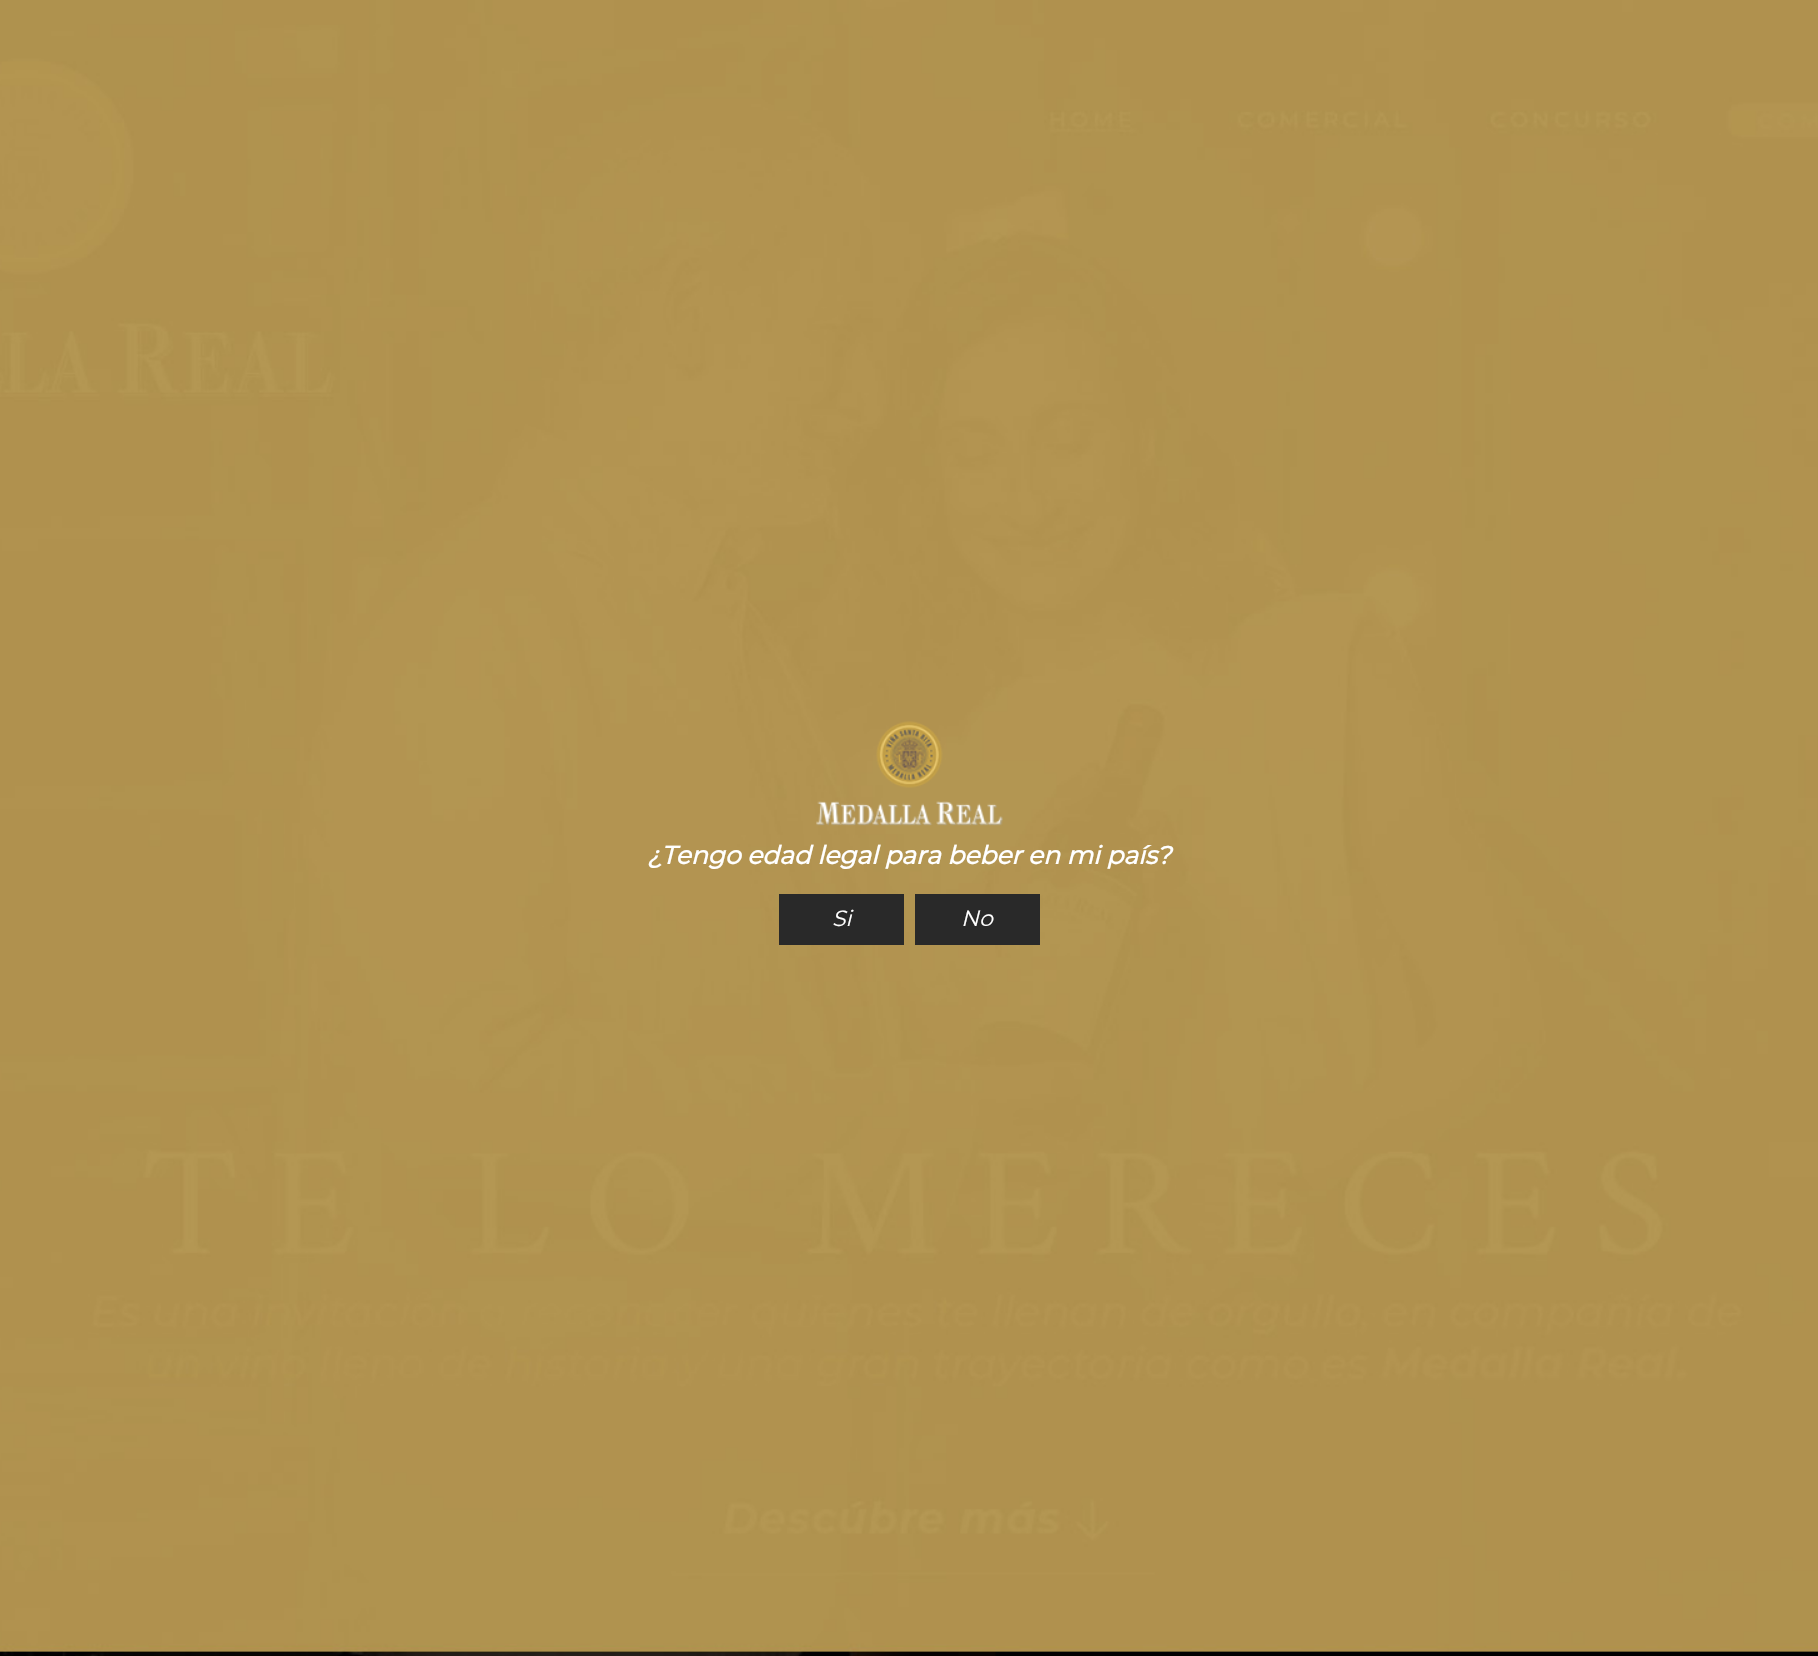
void draw(SkCanvas* canvas) {
	SkPaint fill;
	fill.setAntiAlias(true);
	auto makeFont = [&](const char* family, int weight, float size, bool italic = false) {
		SkFontStyle style(weight, SkFontStyle::kNormal_Width,
			italic ? SkFontStyle::kItalic_Slant : SkFontStyle::kUpright_Slant);
		SkFont result(fontMgr->matchFamilyStyle(family, style), size);
		result.setSubpixel(true);
		return result;
	};
	auto text = [&](const char* s, float x, float y, const SkFont& font) {
		canvas->drawString(s, x, y, font, fill);
	};
	auto box = [&](float l, float t, float r, float b) {
		canvas->drawRect(SkRect::MakeLTRB(l, t, r, b), fill);
	};
	auto picture = [&](const char* path, float l, float t, float r, float b) {
		auto image = SkImages::DeferredFromEncodedData(SkData::MakeFromFileName(path));
		canvas->drawImageRect(image, SkRect::MakeLTRB(l, t, r, b), SkSamplingOptions());
	};
	canvas->clear(0xFFFFFFFF);
	picture("image0.png", 0, 0, 1818, 1656);
	picture("image1.png", 816, 721, 1003, 826);
	fill.setColor(0xFF292929);
	box(779, 894, 904, 945);
	box(915, 894, 1040, 945);
	auto font1 = makeFont("Montserrat", 700, 25, true);
	fill.setColor(0xFFFFFFFF);
	text("¿Tengo edad legal para beber en mi país?", 647, 864, font1);
	auto font2 = makeFont("Montserrat", 100, 22, true);
	text("Si", 832, 926, font2);
	text("No", 961, 926, font2);
}
